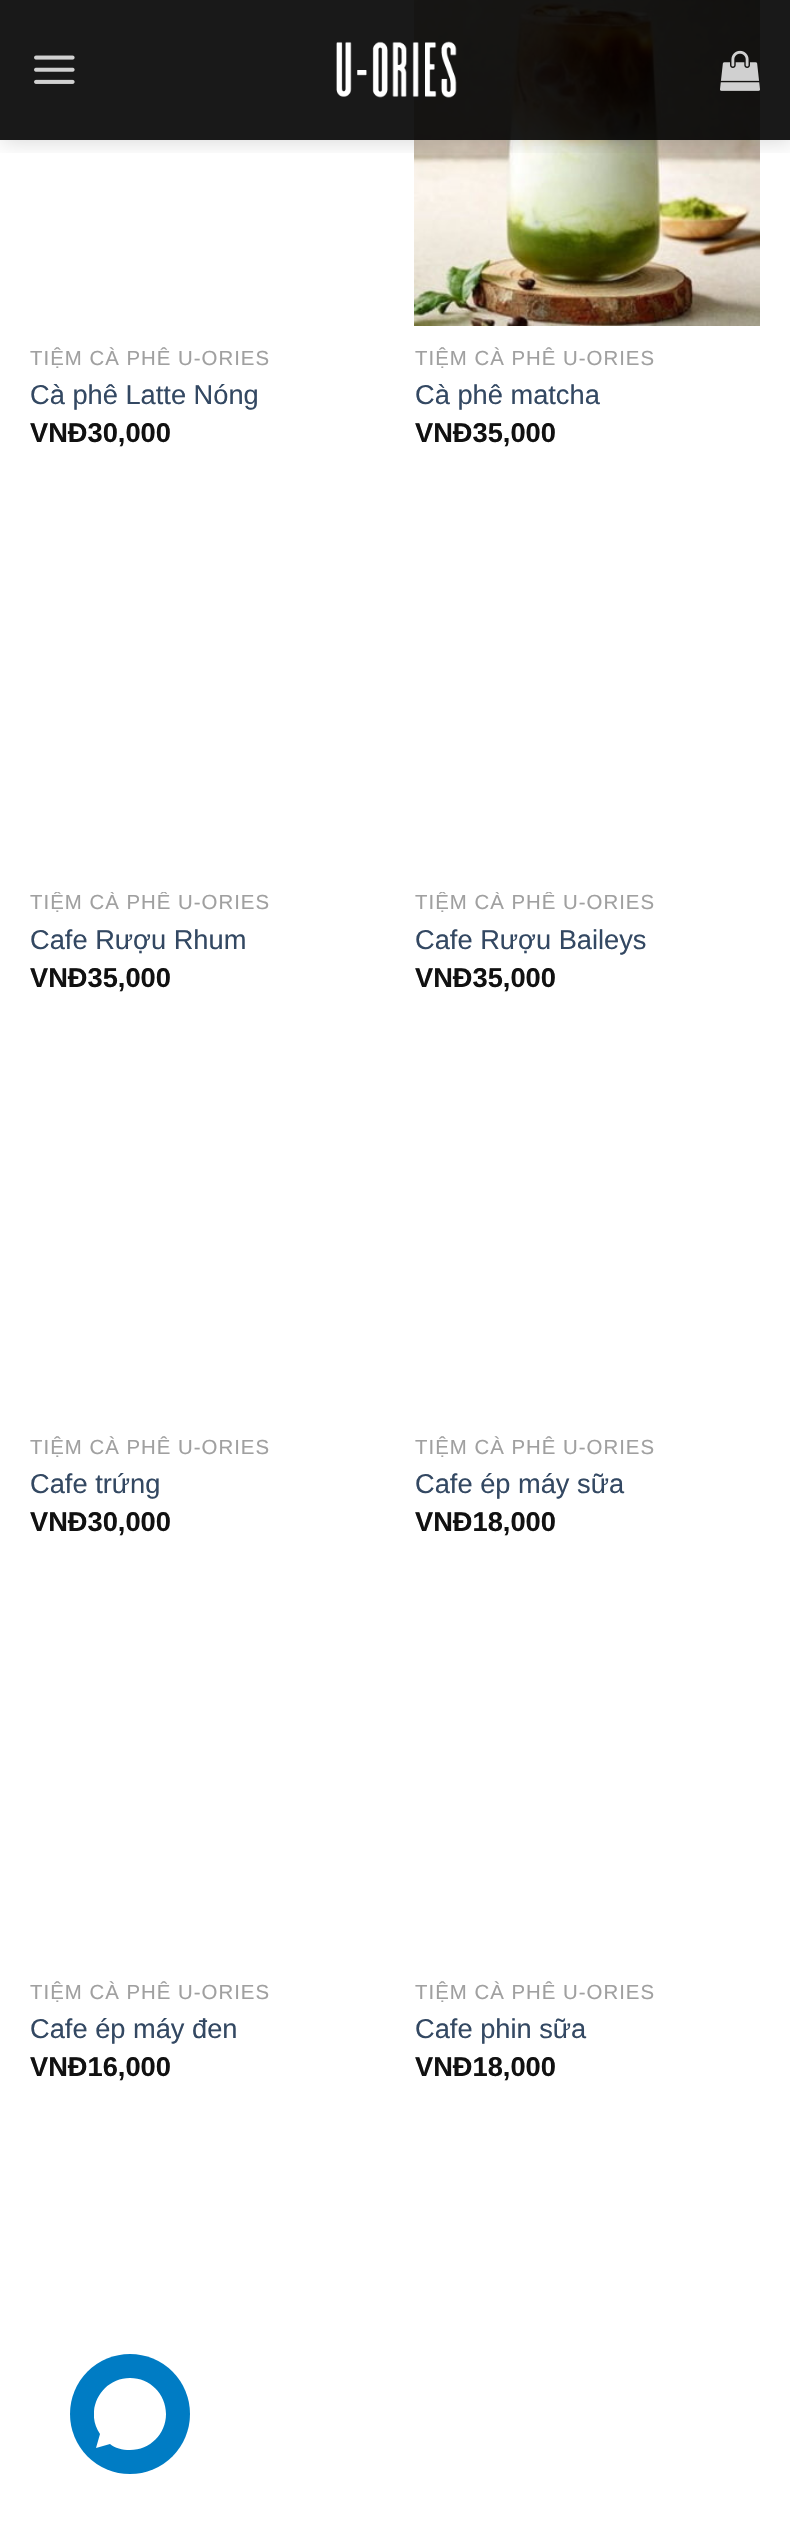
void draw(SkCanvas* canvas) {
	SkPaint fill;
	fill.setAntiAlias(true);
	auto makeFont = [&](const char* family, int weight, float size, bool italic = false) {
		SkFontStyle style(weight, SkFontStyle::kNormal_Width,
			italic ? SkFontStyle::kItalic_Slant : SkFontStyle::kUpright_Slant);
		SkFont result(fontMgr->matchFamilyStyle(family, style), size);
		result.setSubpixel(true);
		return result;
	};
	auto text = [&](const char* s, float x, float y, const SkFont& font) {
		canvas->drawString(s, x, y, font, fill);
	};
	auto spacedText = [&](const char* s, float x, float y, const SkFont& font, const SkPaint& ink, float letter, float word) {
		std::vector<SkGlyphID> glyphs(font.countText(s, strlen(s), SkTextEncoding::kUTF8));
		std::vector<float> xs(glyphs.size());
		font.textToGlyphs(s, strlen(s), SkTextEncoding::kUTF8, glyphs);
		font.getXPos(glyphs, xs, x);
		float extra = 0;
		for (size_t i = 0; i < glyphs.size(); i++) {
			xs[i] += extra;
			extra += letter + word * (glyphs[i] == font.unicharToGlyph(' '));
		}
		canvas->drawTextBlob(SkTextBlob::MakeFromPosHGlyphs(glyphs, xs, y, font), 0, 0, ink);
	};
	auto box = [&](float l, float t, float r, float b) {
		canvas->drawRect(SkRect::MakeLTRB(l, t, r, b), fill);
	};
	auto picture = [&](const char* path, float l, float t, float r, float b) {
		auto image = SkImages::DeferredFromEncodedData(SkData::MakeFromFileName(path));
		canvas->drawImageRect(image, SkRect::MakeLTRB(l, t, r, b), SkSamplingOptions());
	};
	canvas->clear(0xFFFFFFFF);
	picture("image3.png", 414, 0, 760, 326);
	canvas->save();
	canvas->clipRect(SkRect::MakeLTRB(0, 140, 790, 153));
	fill.setColor(0x26000000);
	fill.setMaskFilter(SkMaskFilter::MakeBlur(kNormal_SkBlurStyle, 10));
	canvas->drawRect(SkRect::MakeLTRB(2, 2, 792, 142), fill);
	fill.setMaskFilter(nullptr);
	canvas->restore();
	fill.setColor(0xE6000000);
	box(0, 0, 790, 140);
	picture("image0.png", 34, 55, 75, 84);
	picture("image1.png", 336, 41, 457, 98);
	picture("image2.png", 720, 50, 760, 91);
	fill.setColor(0xFF007CC4);
	canvas->drawCircle(130, 2414, 60, fill);
	canvas->save();
	canvas->clipRect(SkRect::MakeLTRB(94, 2378, 166, 2450));
	fill.setColor(0xFFFFFFFF);
	canvas->drawPath(SkPathBuilder().moveTo(130, 2378).cubicTo(101, 2378, 84, 2411, 100, 2434).lineTo(96, 2448).lineTo(110, 2444).cubicTo(115, 2448, 122, 2450, 130, 2450).cubicTo(150, 2450, 166, 2434, 166, 2414).cubicTo(166, 2394, 150, 2378, 130, 2378).close().detach(), fill);
	canvas->restore();
	auto font1 = makeFont("Liberation Sans", 400, 20.4f);
	fill.setColor(0xFFA0A0A0);
	spacedText("TIỆM CÀ PHÊ U-ORIES", 30, 365, font1, fill, 1, 0);
	auto font2 = makeFont("Liberation Sans", 400, 27.25f);
	fill.setColor(0xFF334862);
	text("Cà phê Latte Nóng", 30, 404, font2);
	auto font3 = makeFont("Liberation Sans", 700, 27.25f);
	fill.setColor(0xFF111111);
	text("VNĐ30,000", 30, 442, font3);
	fill.setColor(0xFFA0A0A0);
	spacedText("TIỆM CÀ PHÊ U-ORIES", 415, 365, font1, fill, 1, 0);
	fill.setColor(0xFF334862);
	text("Cà phê matcha", 415, 404, font2);
	fill.setColor(0xFF111111);
	text("VNĐ35,000", 415, 442, font3);
	canvas->save();
	canvas->clipRect(SkRect::MakeLTRB(30, 892, 376, 916));
	fill.setColor(0xFFA0A0A0);
	spacedText("TIỆM CÀ PHÊ U-ORIES", 30, 909, font1, fill, 1, 0);
	canvas->restore();
	fill.setColor(0xFF334862);
	text("Cafe Rượu Rhum", 30, 949, font2);
	fill.setColor(0xFF111111);
	text("VNĐ35,000", 30, 987, font3);
	canvas->save();
	canvas->clipRect(SkRect::MakeLTRB(414, 892, 760, 916));
	fill.setColor(0xFFA0A0A0);
	spacedText("TIỆM CÀ PHÊ U-ORIES", 415, 909, font1, fill, 1, 0);
	canvas->restore();
	fill.setColor(0xFF334862);
	text("Cafe Rượu Baileys", 415, 949, font2);
	fill.setColor(0xFF111111);
	text("VNĐ35,000", 415, 987, font3);
	fill.setColor(0xFFA0A0A0);
	spacedText("TIỆM CÀ PHÊ U-ORIES", 30, 1454, font1, fill, 1, 0);
	fill.setColor(0xFF334862);
	text("Cafe trứng", 30, 1493, font2);
	fill.setColor(0xFF111111);
	text("VNĐ30,000", 30, 1531, font3);
	fill.setColor(0xFFA0A0A0);
	spacedText("TIỆM CÀ PHÊ U-ORIES", 415, 1454, font1, fill, 1, 0);
	fill.setColor(0xFF334862);
	text("Cafe ép máy sữa", 415, 1493, font2);
	fill.setColor(0xFF111111);
	text("VNĐ18,000", 415, 1531, font3);
	fill.setColor(0xFFA0A0A0);
	spacedText("TIỆM CÀ PHÊ U-ORIES", 30, 1999, font1, fill, 1, 0);
	fill.setColor(0xFF334862);
	text("Cafe ép máy đen", 30, 2038, font2);
	fill.setColor(0xFF111111);
	text("VNĐ16,000", 30, 2076, font3);
	fill.setColor(0xFFA0A0A0);
	spacedText("TIỆM CÀ PHÊ U-ORIES", 415, 1999, font1, fill, 1, 0);
	fill.setColor(0xFF334862);
	text("Cafe phin sữa", 415, 2038, font2);
	fill.setColor(0xFF111111);
	text("VNĐ18,000", 415, 2076, font3);
}
